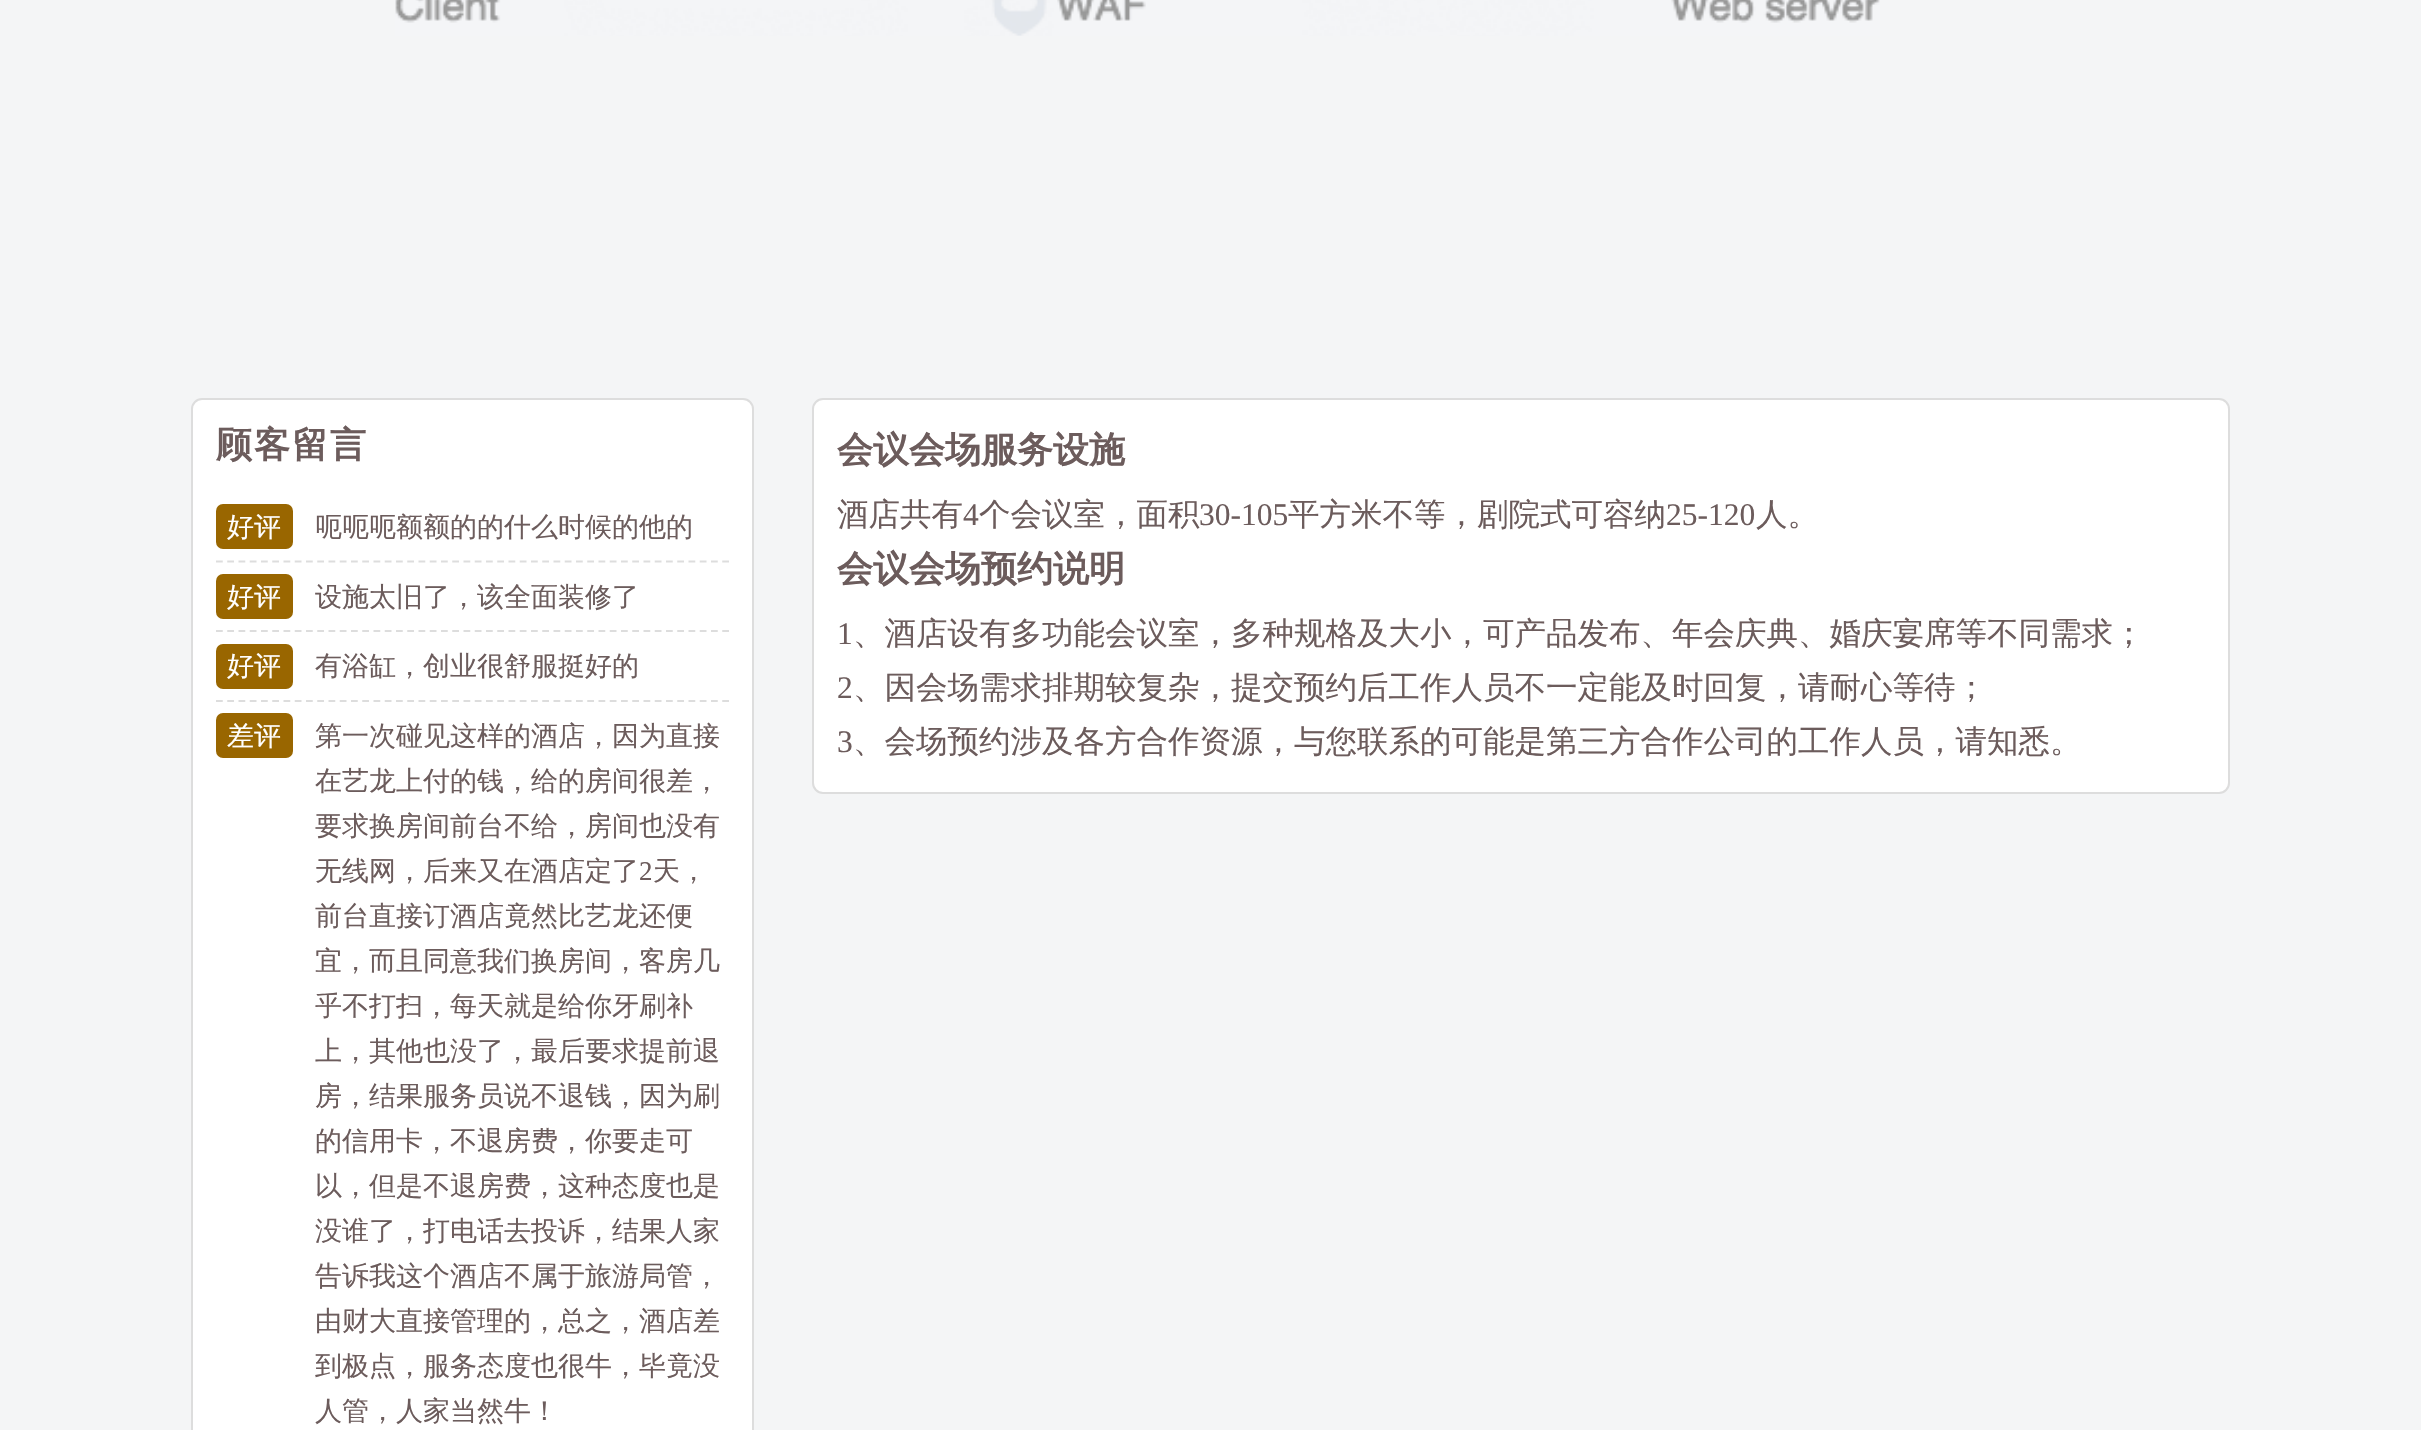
void draw(SkCanvas* canvas) {
	SkPaint fill;
	fill.setAntiAlias(true);
	auto makeFont = [&](const char* family, int weight, float size, bool italic = false) {
		SkFontStyle style(weight, SkFontStyle::kNormal_Width,
			italic ? SkFontStyle::kItalic_Slant : SkFontStyle::kUpright_Slant);
		SkFont result(fontMgr->matchFamilyStyle(family, style), size);
		result.setSubpixel(true);
		return result;
	};
	auto text = [&](const char* s, float x, float y, const SkFont& font) {
		canvas->drawString(s, x, y, font, fill);
	};
	auto spacedText = [&](const char* s, float x, float y, const SkFont& font, const SkPaint& ink, float letter, float word) {
		std::vector<SkGlyphID> glyphs(font.countText(s, strlen(s), SkTextEncoding::kUTF8));
		std::vector<float> xs(glyphs.size());
		font.textToGlyphs(s, strlen(s), SkTextEncoding::kUTF8, glyphs);
		font.getXPos(glyphs, xs, x);
		float extra = 0;
		for (size_t i = 0; i < glyphs.size(); i++) {
			xs[i] += extra;
			extra += letter + word * (glyphs[i] == font.unicharToGlyph(' '));
		}
		canvas->drawTextBlob(SkTextBlob::MakeFromPosHGlyphs(glyphs, xs, y, font), 0, 0, ink);
	};
	auto roundBox = [&](float l, float t, float r, float b, float radius) {
		canvas->drawRoundRect(SkRect::MakeLTRB(l, t, r, b), radius, radius, fill);
	};
	auto picture = [&](const char* path, float l, float t, float r, float b) {
		auto image = SkImages::DeferredFromEncodedData(SkData::MakeFromFileName(path));
		canvas->drawImageRect(image, SkRect::MakeLTRB(l, t, r, b), SkSamplingOptions());
	};
	canvas->clear(0xFFF4F5F6);
	picture("image0.png", 395, 0, 1880, 36);
	fill.setColor(0xFFFFFFFF);
	canvas->drawRoundRect(SkRect::MakeLTRB(192, 399, 753, 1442), 10, 10, fill);
	fill.setStyle(SkPaint::kStroke_Style);
	fill.setStrokeWidth(2);
	fill.setColor(0xFFDDDDDD);
	canvas->drawRoundRect(SkRect::MakeLTRB(192, 399, 753, 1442), 10, 10, fill);
	fill.setStrokeWidth(2.2f);
	fill.setPathEffect(SkDashPathEffect::Make({{6.75f, 4.5f}}, 0));
	canvas->drawPath(SkPathBuilder().moveTo(216, 561.5f).lineTo(729, 561.5f).detach(), fill);
	fill.setPathEffect(nullptr);
	fill.setStyle(SkPaint::kFill_Style);
	fill.setColor(0xFF996600);
	roundBox(216, 504, 293, 549, 7);
	fill.setStyle(SkPaint::kStroke_Style);
	fill.setColor(0xFFDDDDDD);
	fill.setPathEffect(SkDashPathEffect::Make({{6.75f, 4.5f}}, 0));
	canvas->drawPath(SkPathBuilder().moveTo(216, 631).lineTo(729, 631).detach(), fill);
	fill.setPathEffect(nullptr);
	fill.setStyle(SkPaint::kFill_Style);
	fill.setColor(0xFF996600);
	roundBox(216, 574, 293, 619, 7);
	fill.setStyle(SkPaint::kStroke_Style);
	fill.setColor(0xFFDDDDDD);
	fill.setPathEffect(SkDashPathEffect::Make({{6.75f, 4.5f}}, 0));
	canvas->drawPath(SkPathBuilder().moveTo(216, 701).lineTo(729, 701).detach(), fill);
	fill.setPathEffect(nullptr);
	fill.setStyle(SkPaint::kFill_Style);
	fill.setColor(0xFF996600);
	roundBox(216, 644, 293, 689, 7);
	roundBox(216, 713, 293, 758, 7);
	fill.setColor(0xFFFFFFFF);
	canvas->drawRoundRect(SkRect::MakeLTRB(813, 399, 2229, 793), 10, 10, fill);
	fill.setStyle(SkPaint::kStroke_Style);
	fill.setStrokeWidth(2);
	fill.setColor(0xFFDDDDDD);
	canvas->drawRoundRect(SkRect::MakeLTRB(813, 399, 2229, 793), 10, 10, fill);
	auto font1 = makeFont("WenQuanYi Zen Hei", 700, 36);
	fill.setStyle(SkPaint::kFill_Style);
	fill.setColor(0xFF6C5C5C);
	spacedText("顾客留言", 216, 457, font1, fill, 2, 0);
	auto font2 = makeFont("WenQuanYi Zen Hei", 500, 27);
	fill.setColor(0xFFFFFFFF);
	text("好评", 227, 536, font2);
	fill.setColor(0xFF6C5C5C);
	text("呃呃呃额额的的什么时候的他的", 315, 536, font2);
	fill.setColor(0xFFFFFFFF);
	text("好评", 227, 606, font2);
	fill.setColor(0xFF6C5C5C);
	text("设施太旧了，该全面装修了", 315, 606, font2);
	fill.setColor(0xFFFFFFFF);
	text("好评", 227, 675, font2);
	fill.setColor(0xFF6C5C5C);
	text("有浴缸，创业很舒服挺好的", 315, 675, font2);
	fill.setColor(0xFFFFFFFF);
	text("差评", 227, 745, font2);
	fill.setColor(0xFF6C5C5C);
	text("第一次碰见这样的酒店，因为直接", 315, 745, font2);
	text("在艺龙上付的钱，给的房间很差，", 315, 790, font2);
	text("要求换房间前台不给，房间也没有", 315, 835, font2);
	text("无线网，后来又在酒店定了", 315, 880, font2);
	auto font3 = makeFont("Liberation Serif", 400, 27);
	text("2", 639, 880, font3);
	text("天，", 653, 880, font2);
	text("前台直接订酒店竟然比艺龙还便", 315, 925, font2);
	text("宜，而且同意我们换房间，客房几", 315, 970, font2);
	text("乎不打扫，每天就是给你牙刷补", 315, 1015, font2);
	text("上，其他也没了，最后要求提前退", 315, 1060, font2);
	text("房，结果服务员说不退钱，因为刷", 315, 1105, font2);
	text("的信用卡，不退房费，你要走可", 315, 1150, font2);
	text("以，但是不退房费，这种态度也是", 315, 1195, font2);
	text("没谁了，打电话去投诉，结果人家", 315, 1240, font2);
	text("告诉我这个酒店不属于旅游局管，", 315, 1285, font2);
	text("由财大直接管理的，总之，酒店差", 315, 1330, font2);
	text("到极点，服务态度也很牛，毕竟没", 315, 1375, font2);
	text("人管，人家当然牛！", 315, 1420, font2);
	text("会议会场服务设施", 837, 462, font1);
	auto font4 = makeFont("WenQuanYi Zen Hei", 500, 31.5f);
	text("酒店共有", 837, 525, font4);
	auto font5 = makeFont("Liberation Serif", 400, 31.5f);
	text("4", 963, 525, font5);
	text("个会议室，面积", 979, 525, font4);
	text("30-105", 1199, 525, font5);
	text("平方米不等，剧院式可容纳", 1288, 525, font4);
	text("25-120", 1666, 525, font5);
	text("人。", 1756, 525, font4);
	text("会议会场预约说明", 837, 581, font1);
	text("1", 837, 644, font5);
	text("、酒店设有多功能会议室，多种规格及大小，可产品发布、年会庆典、婚庆宴席等不同需求；", 853, 644, font4);
	text("2", 837, 698, font5);
	text("、因会场需求排期较复杂，提交预约后工作人员不一定能及时回复，请耐心等待；", 853, 698, font4);
	text("3", 837, 752, font5);
	text("、会场预约涉及各方合作资源，与您联系的可能是第三方合作公司的工作人员，请知悉。", 853, 752, font4);
}
